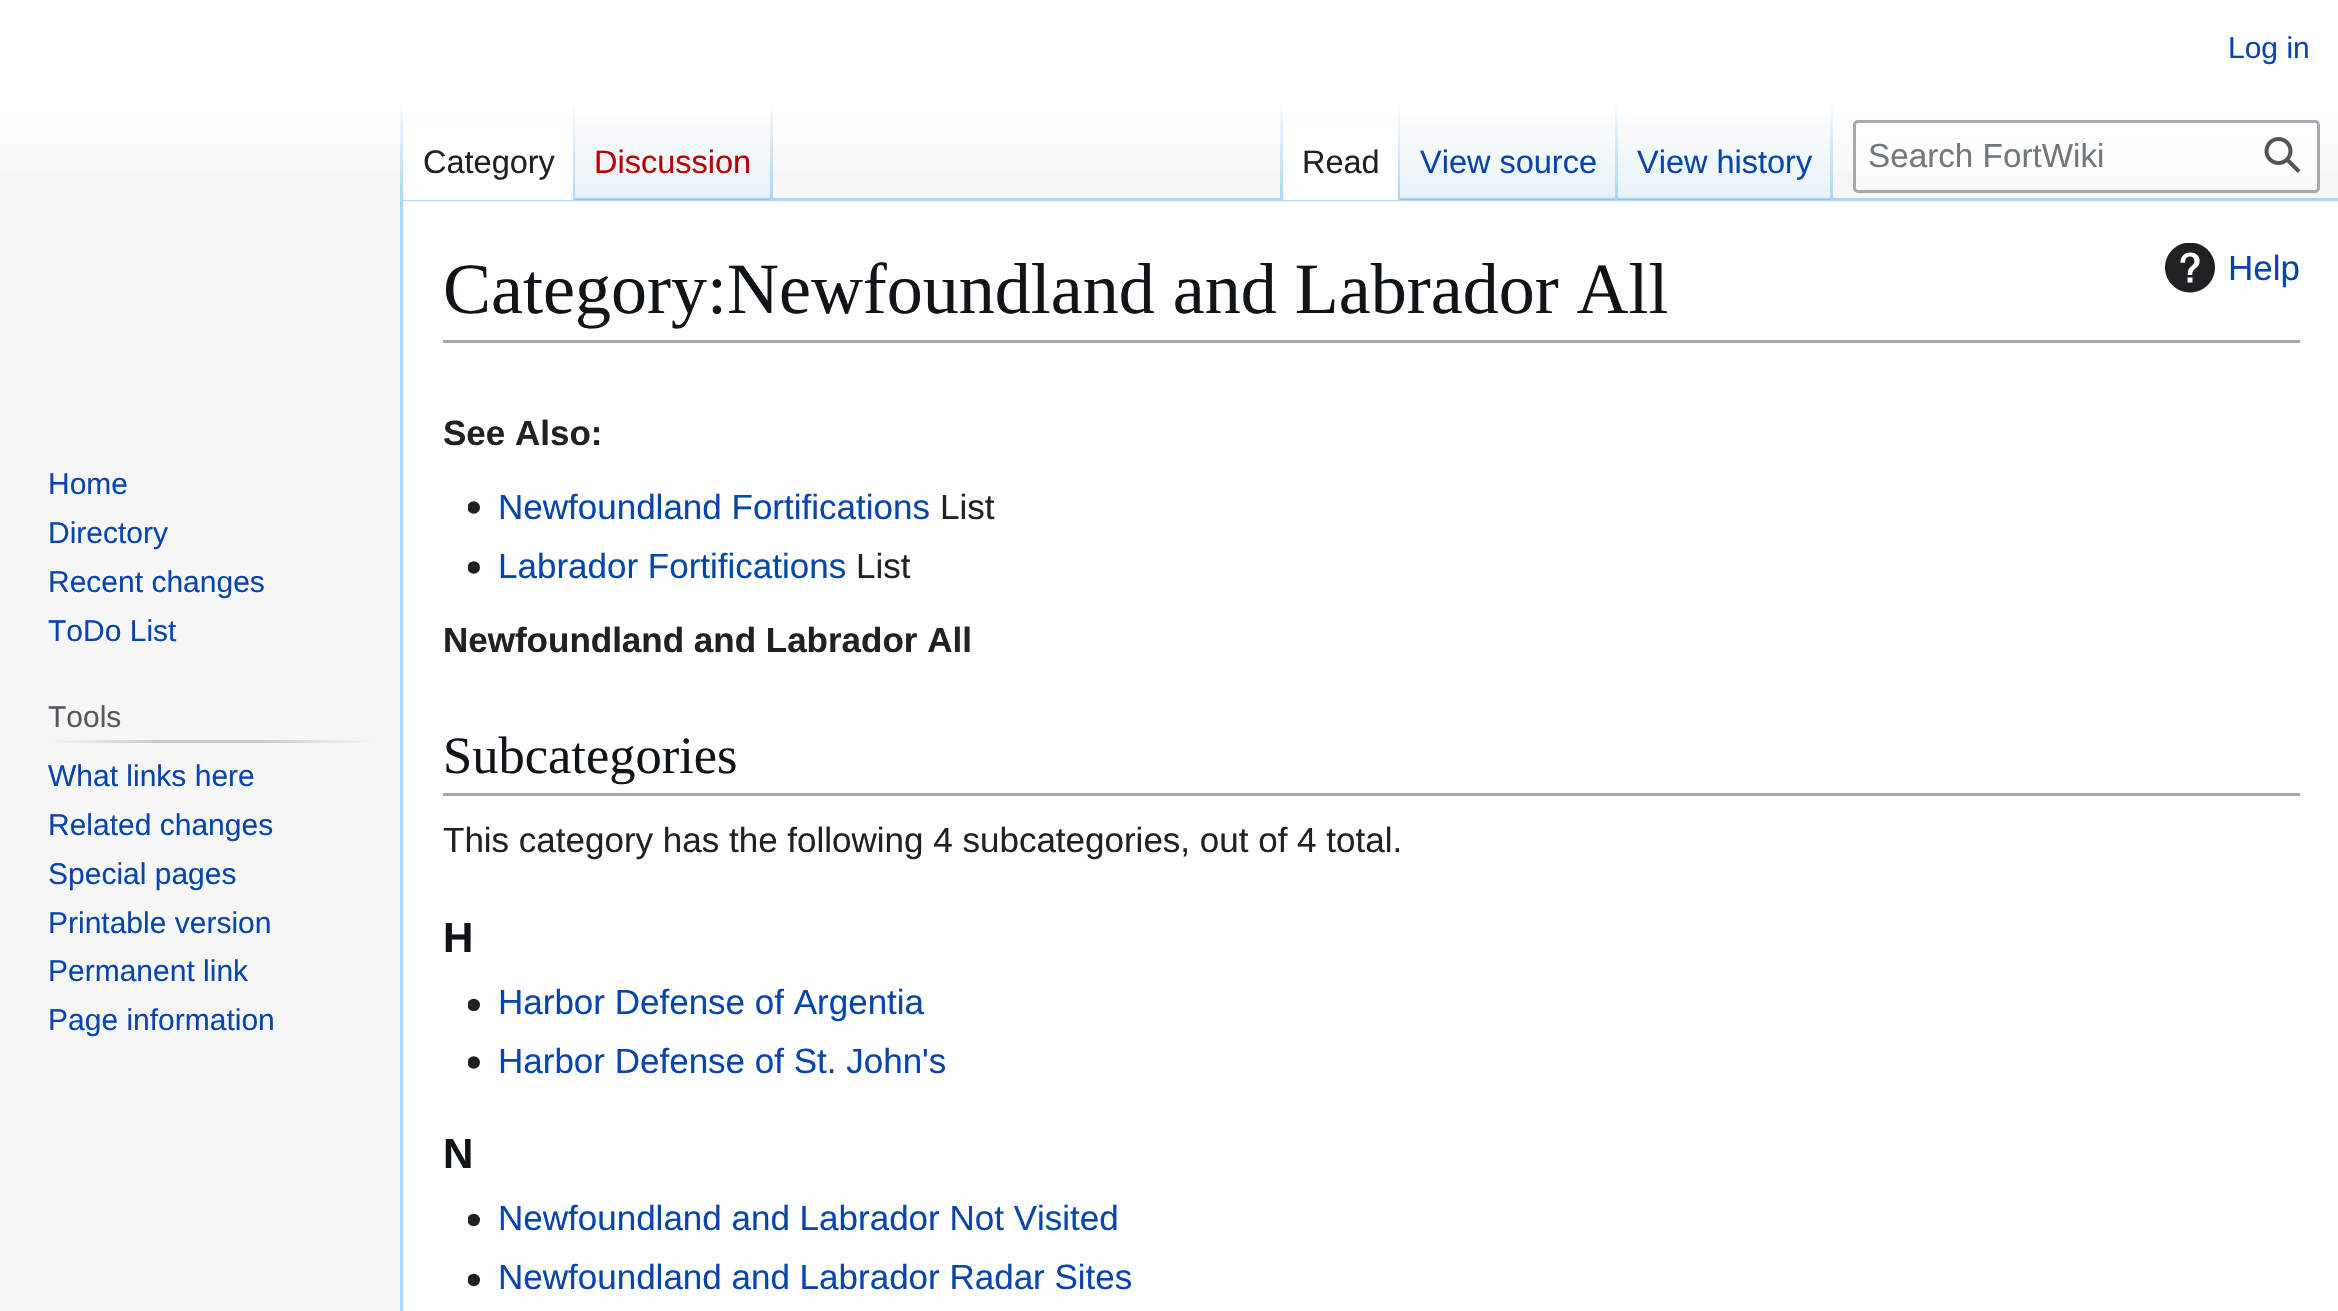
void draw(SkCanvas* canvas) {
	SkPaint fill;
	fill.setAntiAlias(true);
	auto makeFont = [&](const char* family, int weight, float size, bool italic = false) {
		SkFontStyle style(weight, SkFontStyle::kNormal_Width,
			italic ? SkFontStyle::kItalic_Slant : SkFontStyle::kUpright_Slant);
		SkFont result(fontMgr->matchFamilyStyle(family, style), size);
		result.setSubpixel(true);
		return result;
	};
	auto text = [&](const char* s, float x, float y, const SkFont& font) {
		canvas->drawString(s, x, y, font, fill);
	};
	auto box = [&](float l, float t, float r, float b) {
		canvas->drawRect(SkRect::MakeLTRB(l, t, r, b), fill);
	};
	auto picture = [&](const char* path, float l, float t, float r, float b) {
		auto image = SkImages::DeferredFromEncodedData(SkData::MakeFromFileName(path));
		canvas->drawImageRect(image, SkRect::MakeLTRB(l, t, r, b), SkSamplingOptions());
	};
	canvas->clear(0xFFF6F6F6);
	{
		const SkColor colors[] = {0xFFFFFFFF, 0xFFF6F6F6};
		const float stops[] = {0.5f, 1};
		const SkPoint ends[] = {{1170, 0}, {1170, 200}};
		fill.setShader(SkGradientShader::MakeLinear(ends, colors, stops, 2, SkTileMode::kClamp));
		fill.setAlpha(255);
	}
	box(0, 0, 2338, 172);
	fill.setShader(nullptr);
	fill.setColor(0xFFA7D7F9);
	box(400, 198, 2338, 201);
	box(400, 198, 403, 1311);
	{
		const SkColor colors[] = {0x00A7D7F9, 0xFFA7D7F9};
		const float stops[] = {0, 1};
		const SkPoint ends[] = {{401, 100}, {401, 200}};
		fill.setShader(SkGradientShader::MakeLinear(ends, colors, stops, 2, SkTileMode::kClamp));
		fill.setAlpha(255);
	}
	box(400, 100, 403, 200);
	fill.setShader(nullptr);
	fill.setColor(0xFFFFFFFF);
	box(403, 128, 573, 200);
	{
		const SkColor colors[] = {0xFFFFFFFF, 0xFFA7D7F9};
		const float stops[] = {0, 1};
		const SkPoint ends[] = {{574, 100}, {574, 200}};
		fill.setShader(SkGradientShader::MakeLinear(ends, colors, stops, 2, SkTileMode::kClamp));
		fill.setAlpha(255);
	}
	box(573, 100, 575, 200);
	{
		const SkColor colors[] = {0xFF77C1F6, 0xFFE8F2F8, 0xFFFFFFFF};
		const float stops[] = {0, 0.03f, 1};
		const SkPoint ends[] = {{674, 200}, {674, 100}};
		fill.setShader(SkGradientShader::MakeLinear(ends, colors, stops, 3, SkTileMode::kClamp));
		fill.setAlpha(255);
	}
	box(575, 115, 773, 200);
	{
		const SkColor colors[] = {0x00A7D7F9, 0xFFA7D7F9};
		const float stops[] = {0, 1};
		const SkPoint ends[] = {{771, 100}, {771, 200}};
		fill.setShader(SkGradientShader::MakeLinear(ends, colors, stops, 2, SkTileMode::kClamp));
		fill.setAlpha(255);
	}
	box(770, 100, 773, 200);
	{
		const SkColor colors[] = {0x00A7D7F9, 0xFFA7D7F9};
		const float stops[] = {0, 1};
		const SkPoint ends[] = {{1281, 100}, {1281, 200}};
		fill.setShader(SkGradientShader::MakeLinear(ends, colors, stops, 2, SkTileMode::kClamp));
		fill.setAlpha(255);
	}
	box(1280, 100, 1283, 200);
	fill.setShader(nullptr);
	fill.setColor(0xFFFFFFFF);
	box(1283, 128, 1398, 200);
	{
		const SkColor colors[] = {0xFFFFFFFF, 0xFFA7D7F9};
		const float stops[] = {0, 1};
		const SkPoint ends[] = {{1399, 100}, {1399, 200}};
		fill.setShader(SkGradientShader::MakeLinear(ends, colors, stops, 2, SkTileMode::kClamp));
		fill.setAlpha(255);
	}
	box(1398, 100, 1400, 200);
	{
		const SkColor colors[] = {0xFF77C1F6, 0xFFE8F2F8, 0xFFFFFFFF};
		const float stops[] = {0, 0.03f, 1};
		const SkPoint ends[] = {{1509, 200}, {1509, 100}};
		fill.setShader(SkGradientShader::MakeLinear(ends, colors, stops, 3, SkTileMode::kClamp));
		fill.setAlpha(255);
	}
	box(1400, 115, 1618, 200);
	{
		const SkColor colors[] = {0x00A7D7F9, 0xFFA7D7F9};
		const float stops[] = {0, 1};
		const SkPoint ends[] = {{1616, 100}, {1616, 200}};
		fill.setShader(SkGradientShader::MakeLinear(ends, colors, stops, 2, SkTileMode::kClamp));
		fill.setAlpha(255);
	}
	box(1615, 100, 1618, 200);
	{
		const SkColor colors[] = {0xFF77C1F6, 0xFFE8F2F8, 0xFFFFFFFF};
		const float stops[] = {0, 0.03f, 1};
		const SkPoint ends[] = {{1725, 200}, {1725, 100}};
		fill.setShader(SkGradientShader::MakeLinear(ends, colors, stops, 3, SkTileMode::kClamp));
		fill.setAlpha(255);
	}
	box(1618, 115, 1833, 200);
	{
		const SkColor colors[] = {0x00A7D7F9, 0xFFA7D7F9};
		const float stops[] = {0, 1};
		const SkPoint ends[] = {{1831, 100}, {1831, 200}};
		fill.setShader(SkGradientShader::MakeLinear(ends, colors, stops, 2, SkTileMode::kClamp));
		fill.setAlpha(255);
	}
	box(1830, 100, 1833, 200);
	fill.setShader(nullptr);
	fill.setColor(0x80FFFFFF);
	canvas->drawRoundRect(SkRect::MakeLTRB(1854.5f, 121.5f, 2318.5f, 191.5f), 3.5f, 3.5f, fill);
	fill.setStyle(SkPaint::kStroke_Style);
	fill.setStrokeWidth(3);
	fill.setColor(0xFFA2A9B1);
	canvas->drawRoundRect(SkRect::MakeLTRB(1854.5f, 121.5f, 2318.5f, 191.5f), 3.5f, 3.5f, fill);
	picture("image0.png", 2264, 137, 2301, 173);
	fill.setStyle(SkPaint::kFill_Style);
	{
		const SkColor colors[] = {0xFFF6F6F6, 0xFFC8CCD1, 0xFFC8CCD1, 0xFFF6F6F6};
		const float stops[] = {0, 0.33f, 0.66f, 1};
		const SkPoint ends[] = {{48, 741}, {375, 741}};
		fill.setShader(SkGradientShader::MakeLinear(ends, colors, stops, 4, SkTileMode::kClamp));
		fill.setAlpha(255);
	}
	box(48, 740, 375, 743);
	fill.setShader(nullptr);
	fill.setColor(0xFFFFFFFF);
	box(403, 201, 2338, 1311);
	fill.setColor(0xFFA2A9B1);
	box(443, 340, 2300, 343);
	picture("image1.png", 2165, 243, 2215, 293);
	picture("image2.png", 468, 501, 480, 514);
	picture("image3.png", 468, 561, 480, 574);
	box(443, 793, 2300, 796);
	picture("image4.png", 468, 998, 480, 1012);
	picture("image3.png", 468, 1056, 480, 1069);
	picture("image4.png", 468, 1213, 480, 1227);
	picture("image5.png", 468, 1273, 480, 1287);
	auto font1 = makeFont("Liberation Sans", 400, 30);
	fill.setColor(0xFF0645AD);
	text("Log in", 2228, 58, font1);
	auto font2 = makeFont("Liberation Sans", 400, 32.5f);
	fill.setColor(0xFF202122);
	text("Category", 423, 173, font2);
	fill.setColor(0xFFBA0000);
	text("Discussion", 594, 173, font2);
	fill.setColor(0xFF202122);
	text("Read", 1302, 173, font2);
	fill.setColor(0xFF0645AD);
	text("View source", 1420, 173, font2);
	text("View history", 1637, 173, font2);
	auto font3 = makeFont("Liberation Sans", 400, 33.25f);
	fill.setColor(0xFF72777D);
	text("Search FortWiki", 1868, 167, font3);
	fill.setColor(0xFF0645AD);
	text("Home", 48, 494, font1);
	text("Directory", 48, 543, font1);
	text("Recent changes", 48, 592, font1);
	text("ToDo List", 48, 641, font1);
	fill.setColor(0xFF54595D);
	text("Tools", 48, 727, font1);
	fill.setColor(0xFF0645AD);
	text("What links here", 48, 786, font1);
	text("Related changes", 48, 835, font1);
	text("Special pages", 48, 884, font1);
	text("Printable version", 48, 933, font1);
	text("Permanent link", 48, 981, font1);
	text("Page information", 48, 1030, font1);
	auto font4 = makeFont("Liberation Serif", 400, 72);
	fill.setColor(0xFF101418);
	text("Category:Newfoundland and Labrador All", 443, 313, font4);
	auto font5 = makeFont("Liberation Sans", 400, 35);
	fill.setColor(0xFF0645AD);
	text("Help", 2228, 280, font5);
	auto font6 = makeFont("Liberation Sans", 700, 35);
	fill.setColor(0xFF202122);
	text("See Also:", 443, 445, font6);
	fill.setColor(0xFF0645AD);
	text("Newfoundland Fortifications", 498, 519, font5);
	fill.setColor(0xFF202122);
	text("List", 940, 519, font5);
	fill.setColor(0xFF0645AD);
	text("Labrador Fortifications", 498, 578, font5);
	fill.setColor(0xFF202122);
	text("List", 856, 578, font5);
	text("Newfoundland and Labrador All", 443, 652, font6);
	auto font7 = makeFont("Liberation Serif", 400, 52.5f);
	fill.setColor(0xFF101418);
	text("Subcategories", 443, 773, font7);
	fill.setColor(0xFF202122);
	text("This category has the following 4 subcategories, out of 4 total.", 443, 852, font5);
	auto font8 = makeFont("Liberation Sans", 700, 42);
	fill.setColor(0xFF101418);
	text("H", 443, 952, font8);
	fill.setColor(0xFF0645AD);
	text("Harbor Defense of Argentia", 498, 1014, font5);
	text("Harbor Defense of St. John's", 498, 1073, font5);
	fill.setColor(0xFF101418);
	text("N", 443, 1168, font8);
	fill.setColor(0xFF0645AD);
	text("Newfoundland and Labrador Not Visited", 498, 1230, font5);
	text("Newfoundland and Labrador Radar Sites", 498, 1289, font5);
}
